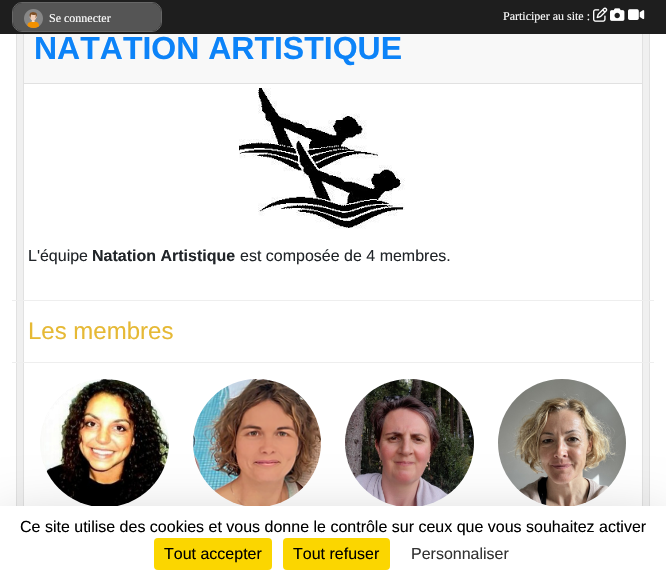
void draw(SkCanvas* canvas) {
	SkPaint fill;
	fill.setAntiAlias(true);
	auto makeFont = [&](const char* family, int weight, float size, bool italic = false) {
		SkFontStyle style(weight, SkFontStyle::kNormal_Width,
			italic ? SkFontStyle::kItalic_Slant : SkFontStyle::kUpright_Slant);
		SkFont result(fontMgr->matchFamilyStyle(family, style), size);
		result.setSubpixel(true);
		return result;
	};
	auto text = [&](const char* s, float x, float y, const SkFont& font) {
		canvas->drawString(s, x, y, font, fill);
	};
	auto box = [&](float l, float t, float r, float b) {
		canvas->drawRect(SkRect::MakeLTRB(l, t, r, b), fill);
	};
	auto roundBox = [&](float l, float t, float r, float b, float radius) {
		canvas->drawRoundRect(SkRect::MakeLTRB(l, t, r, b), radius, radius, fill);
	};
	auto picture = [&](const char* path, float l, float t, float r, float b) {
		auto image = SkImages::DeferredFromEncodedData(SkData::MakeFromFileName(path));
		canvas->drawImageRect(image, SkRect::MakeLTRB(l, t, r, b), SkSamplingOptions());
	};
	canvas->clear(0xFFFFFFFF);
	fill.setColor(0xFFF0F0F0);
	box(17, 34, 649, 506);
	fill.setStyle(SkPaint::kStroke_Style);
	fill.setStrokeWidth(1);
	fill.setColor(0xFFE1E1E1);
	canvas->drawRect(SkRect::MakeLTRB(16.5f, -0.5f, 649.5f, 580.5f), fill);
	fill.setStyle(SkPaint::kFill_Style);
	fill.setColor(0xFFFFFFFF);
	box(24, 84, 642, 506);
	fill.setStyle(SkPaint::kStroke_Style);
	fill.setColor(0xFFE1E1E1);
	canvas->drawRect(SkRect::MakeLTRB(23.5f, -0.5f, 642.5f, 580.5f), fill);
	fill.setStyle(SkPaint::kFill_Style);
	fill.setColor(0xFF1E1E1E);
	box(0, 0, 666, 34);
	fill.setStyle(SkPaint::kStroke_Style);
	fill.setColor(0xFF666666);
	canvas->drawRoundRect(SkRect::MakeLTRB(12.5f, 2.5f, 161.5f, 31.5f), 9.5f, 9.5f, fill);
	fill.setStyle(SkPaint::kFill_Style);
	fill.setColor(0xFF555555);
	roundBox(13, 3, 161, 31, 9);
	picture("image0.png", 24, 9, 43, 28);
	picture("image1.png", 593, 7, 608, 22);
	picture("image2.png", 610, 8, 625, 21);
	picture("image3.png", 628, 9, 645, 20);
	fill.setColor(0xFFF8F8F8);
	box(24, 34, 642, 83);
	fill.setColor(0xFFE1E1E1);
	box(24, 83, 642, 84);
	picture("image4.png", 239, 88, 405, 229);
	fill.setColor(0xFFEEEEEE);
	box(12, 300, 654, 301);
	box(12, 362, 654, 363);
	picture("image5.png", 40, 379, 169, 506);
	picture("image6.png", 193, 379, 321, 506);
	picture("image7.png", 345, 379, 474, 506);
	picture("image8.png", 498, 379, 626, 506);
	fill.setColor(0x40000000);
	fill.setMaskFilter(SkMaskFilter::MakeBlur(kNormal_SkBlurStyle, 30));
	canvas->drawRect(SkRect::MakeLTRB(0, 526, 666, 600), fill);
	fill.setMaskFilter(nullptr);
	fill.setColor(0xFFFFFFFF);
	box(0, 506, 666, 580);
	fill.setColor(0xFFFBD600);
	roundBox(154, 538, 272, 570, 4);
	roundBox(283, 538, 390, 570, 4);
	auto font1 = makeFont("Liberation Serif", 400, 12);
	fill.setColor(0xFFFFFFFF);
	text("Se connecter", 49, 22, font1);
	text("Participer au site :", 503, 20, font1);
	auto font2 = makeFont("Liberation Sans", 700, 32);
	fill.setColor(0xFF0C83F8);
	text("NATATION ARTISTIQUE", 34, 59, font2);
	auto font3 = makeFont("Liberation Sans", 400, 16);
	fill.setColor(0xFF212529);
	text("L'équipe", 28, 261, font3);
	auto font4 = makeFont("Liberation Sans", 700, 16);
	text("Natation Artistique", 92, 261, font4);
	text("est composée de 4 membres.", 240, 261, font3);
	auto font5 = makeFont("Liberation Sans", 400, 24);
	fill.setColor(0xFFE6B935);
	text("Les membres", 28, 339, font5);
	fill.setColor(0xFF000000);
	text("Ce site utilise des cookies et vous donne le contrôle sur ceux que vous souhaitez activer", 20, 532, font3);
	text("Tout accepter", 164, 559, font3);
	text("Tout refuser", 293, 559, font3);
	fill.setColor(0xFF333333);
	text("Personnaliser", 411, 559, font3);
}
